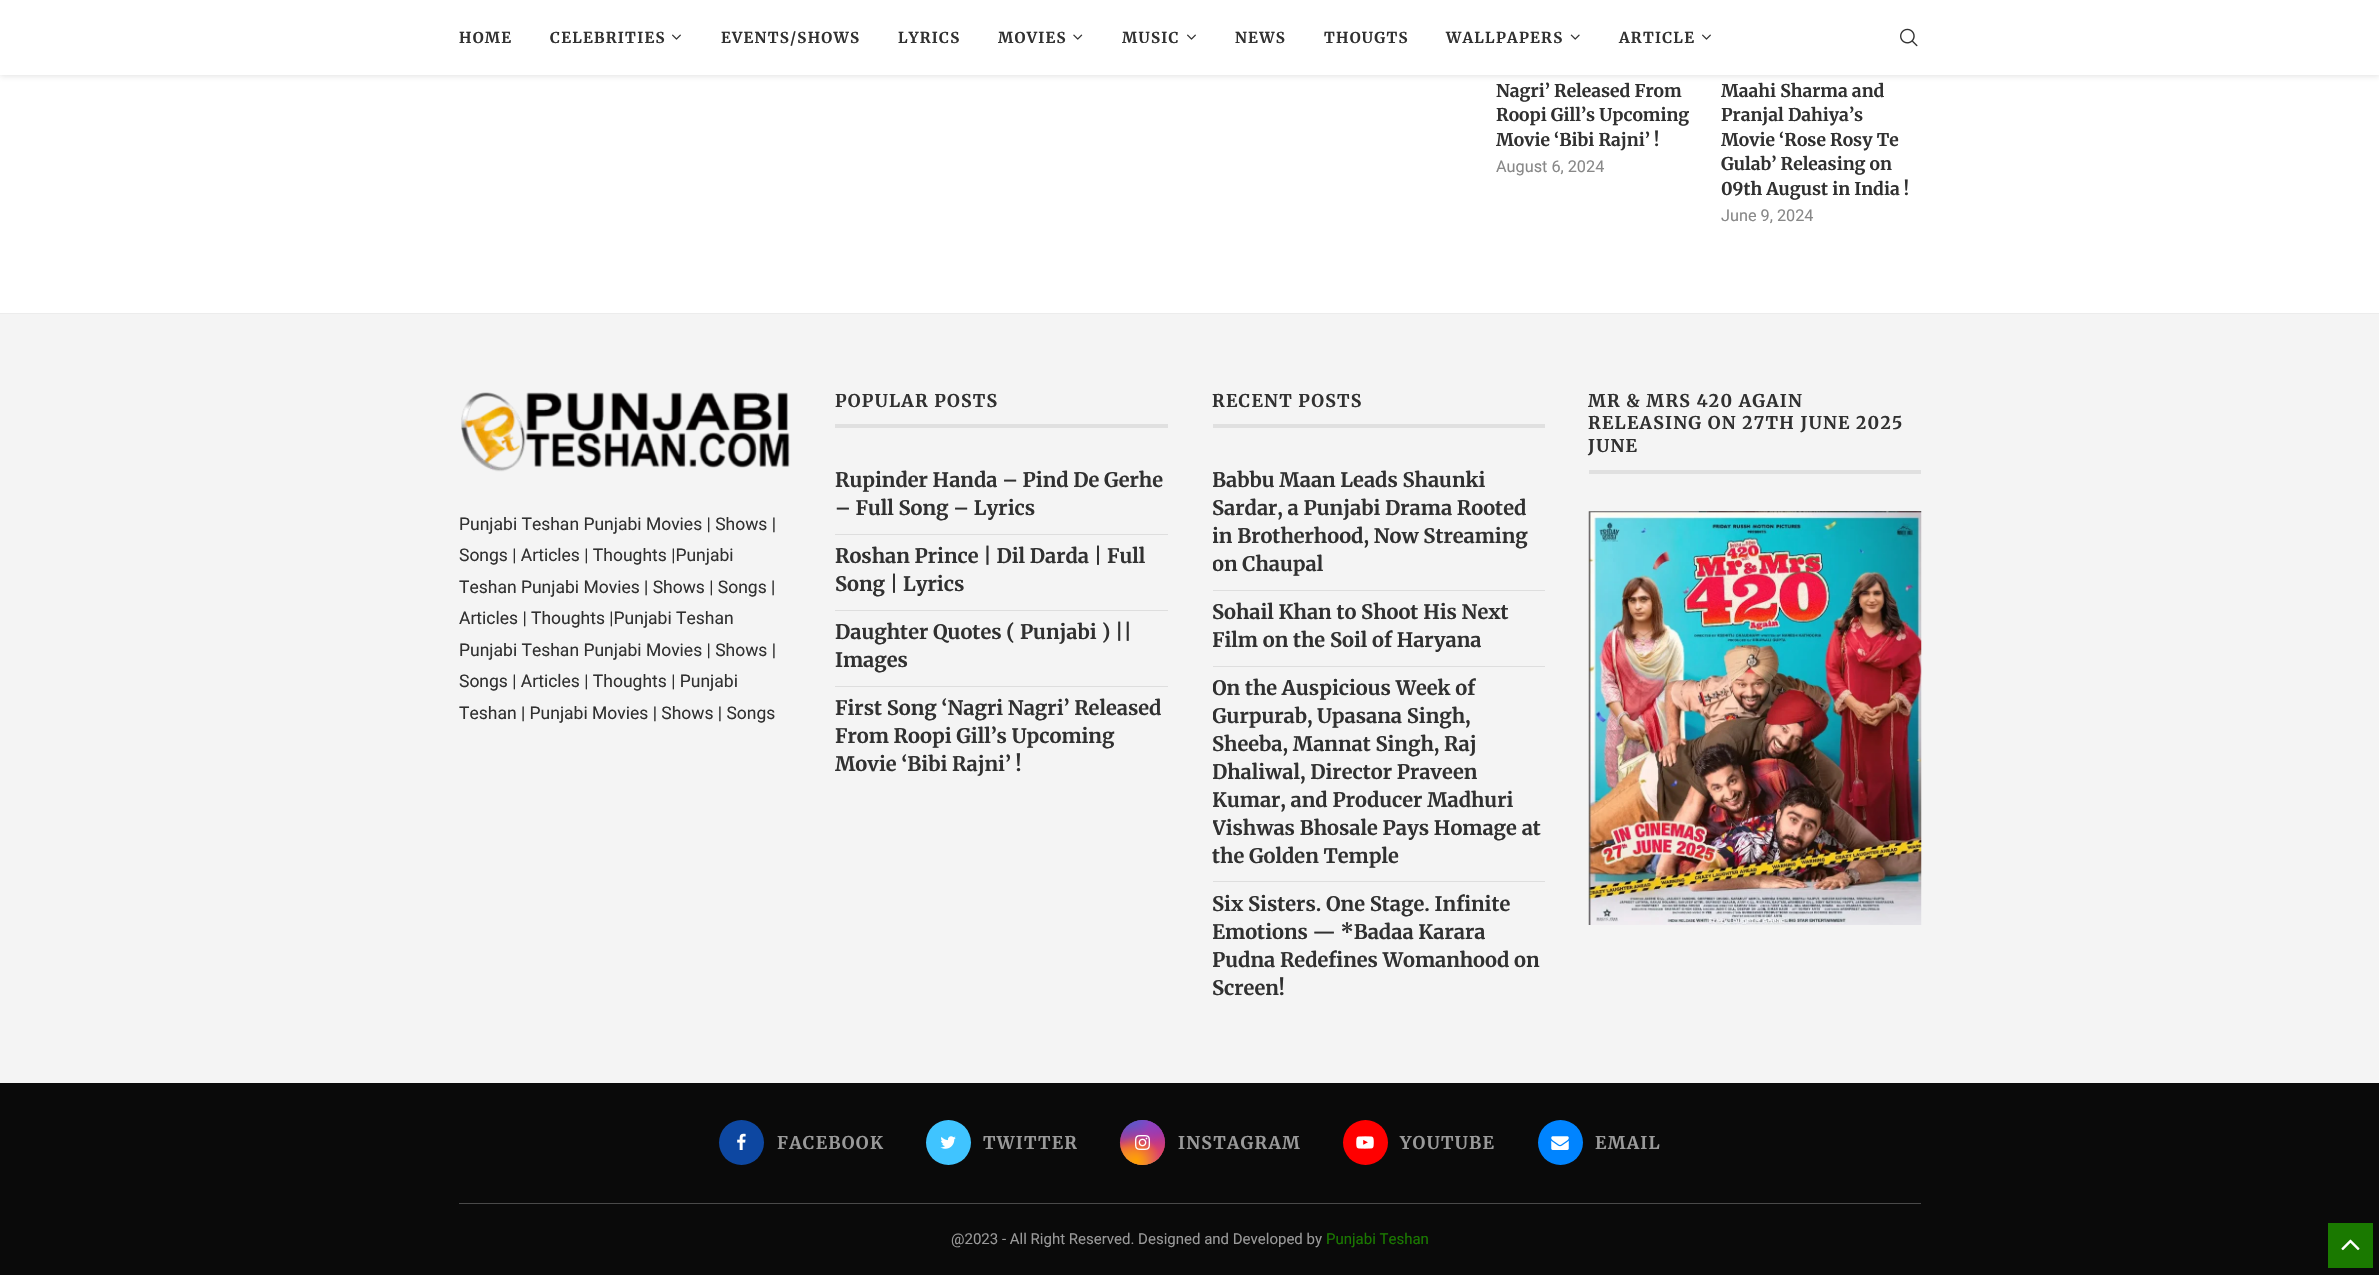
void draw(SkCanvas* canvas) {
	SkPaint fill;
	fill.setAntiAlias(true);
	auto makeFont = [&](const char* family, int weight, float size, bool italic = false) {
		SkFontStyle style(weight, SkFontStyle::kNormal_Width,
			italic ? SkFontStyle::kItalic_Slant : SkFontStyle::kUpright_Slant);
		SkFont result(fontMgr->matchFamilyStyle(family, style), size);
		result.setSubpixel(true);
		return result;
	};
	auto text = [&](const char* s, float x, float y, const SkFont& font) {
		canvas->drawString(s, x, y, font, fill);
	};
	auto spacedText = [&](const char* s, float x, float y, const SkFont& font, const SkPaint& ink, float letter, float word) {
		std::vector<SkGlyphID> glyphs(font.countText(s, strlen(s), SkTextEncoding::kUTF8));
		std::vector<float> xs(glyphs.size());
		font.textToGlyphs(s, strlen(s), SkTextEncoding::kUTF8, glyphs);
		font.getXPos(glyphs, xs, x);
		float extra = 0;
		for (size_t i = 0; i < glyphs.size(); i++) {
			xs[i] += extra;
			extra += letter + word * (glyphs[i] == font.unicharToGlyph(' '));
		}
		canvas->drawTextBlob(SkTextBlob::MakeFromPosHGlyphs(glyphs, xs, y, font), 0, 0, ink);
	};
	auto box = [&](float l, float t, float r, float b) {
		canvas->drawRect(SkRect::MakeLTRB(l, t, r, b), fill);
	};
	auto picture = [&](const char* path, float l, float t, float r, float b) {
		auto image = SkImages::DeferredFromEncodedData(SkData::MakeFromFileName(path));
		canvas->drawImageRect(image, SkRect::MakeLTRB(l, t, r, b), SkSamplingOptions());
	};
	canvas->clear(0xFFFFFFFF);
	fill.setColor(0x75BEBEBE);
	fill.setMaskFilter(SkMaskFilter::MakeBlur(kNormal_SkBlurStyle, 3));
	canvas->drawRect(SkRect::MakeLTRB(0, 1, 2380, 76), fill);
	fill.setMaskFilter(nullptr);
	fill.setColor(0xFFFFFFFF);
	box(0, 0, 2379, 75);
	picture("image0.png", 672, 34, 681, 40);
	picture("image1.png", 1073, 34, 1083, 40);
	picture("image0.png", 1187, 34, 1196, 40);
	picture("image2.png", 1570, 34, 1580, 40);
	picture("image0.png", 1702, 34, 1711, 40);
	picture("image3.png", 1900, 28, 1918, 47);
	fill.setColor(0xFFF4F4F4);
	box(0, 314, 2379, 1083);
	fill.setColor(0xFFECECEC);
	box(0, 313, 2379, 314);
	fill.setColor(0xFFE0E0E0);
	box(835, 424, 1168, 428);
	fill.setColor(0xFFDEDEDE);
	box(835, 534, 1168, 535);
	box(835, 610, 1168, 611);
	box(835, 686, 1168, 687);
	fill.setColor(0xFFE0E0E0);
	box(1213, 424, 1545, 428);
	fill.setColor(0xFFDEDEDE);
	box(1213, 590, 1545, 591);
	box(1213, 666, 1545, 667);
	box(1213, 881, 1545, 882);
	fill.setColor(0xFFE0E0E0);
	box(1589, 470, 1921, 474);
	picture("image4.png", 1588, 511, 1922, 925);
	picture("image5.png", 461, 392, 790, 472);
	fill.setColor(0xFF0A0A0A);
	box(0, 1083, 2379, 1275);
	fill.setColor(0xFF4A4A4A);
	box(459, 1203, 1921, 1204);
	fill.setColor(0xFF0D47A1);
	canvas->drawCircle(741.5f, 1142.5f, 22.5f, fill);
	picture("image6.png", 737, 1133, 746, 1150);
	fill.setColor(0xFF40C4FF);
	canvas->drawCircle(948.5f, 1142.5f, 22.5f, fill);
	picture("image7.png", 940, 1136, 956, 1149);
	{
		const SkColor colors[] = {0xFF6559CA, 0xFFBC318F, 0xFFE33F5F, 0xFFF77638, 0xFFFEC66D};
		const float stops[] = {0, 0.3f, 0.5f, 0.7f, 1};
		const SkPoint ends[] = {{1143, 1120}, {1143, 1165}};
		fill.setShader(SkGradientShader::MakeLinear(ends, colors, stops, 5, SkTileMode::kClamp));
		fill.setAlpha(255);
	}
	canvas->drawCircle(1142.5f, 1142.5f, 22.5f, fill);
	{
		const SkColor colors[] = {0xFFD43178, 0x00D43178};
		const float stops[] = {0, 1};
		fill.setShader(SkGradientShader::MakeRadial({1165, 1165}, 64, colors, stops, 2, SkTileMode::kClamp));
		fill.setAlpha(255);
	}
	canvas->drawCircle(1142.5f, 1142.5f, 22.5f, fill);
	{
		const SkColor colors[] = {0xFF8F44C7, 0x008F44C7};
		const float stops[] = {0, 0.5f};
		SkMatrix m = SkMatrix::Translate(1147, 1111).preScale(38, 76);
		fill.setShader(SkGradientShader::MakeRadial({0, 0}, 1, colors, stops, 2, SkTileMode::kClamp, 0, &m));
		fill.setAlpha(255);
	}
	canvas->drawCircle(1142.5f, 1142.5f, 22.5f, fill);
	{
		const SkColor colors[] = {0xFF893DC2, 0x00893DC2};
		const float stops[] = {0, 0.5f};
		fill.setShader(SkGradientShader::MakeRadial({1165, 1120}, 64, colors, stops, 2, SkTileMode::kClamp));
		fill.setAlpha(255);
	}
	canvas->drawCircle(1142.5f, 1142.5f, 22.5f, fill);
	{
		const SkColor colors[] = {0xFF5258CF, 0x005258CF};
		const float stops[] = {0, 0.5f};
		SkMatrix m = SkMatrix::Translate(1129, 1098).preScale(51, 95);
		fill.setShader(SkGradientShader::MakeRadial({0, 0}, 1, colors, stops, 2, SkTileMode::kClamp, 0, &m));
		fill.setAlpha(255);
	}
	canvas->drawCircle(1142.5f, 1142.5f, 22.5f, fill);
	{
		const SkColor colors[] = {0xFF5258CF, 0x005258CF};
		const float stops[] = {0, 0.5f};
		SkMatrix m = SkMatrix::Translate(1120, 1109).preScale(64, 80);
		fill.setShader(SkGradientShader::MakeRadial({0, 0}, 1, colors, stops, 2, SkTileMode::kClamp, 0, &m));
		fill.setAlpha(255);
	}
	canvas->drawCircle(1142.5f, 1142.5f, 22.5f, fill);
	{
		const SkColor colors[] = {0xFFEFA11C, 0x00EFA11C};
		const float stops[] = {0, 0.5f};
		fill.setShader(SkGradientShader::MakeRadial({1120, 1183}, 77, colors, stops, 2, SkTileMode::kClamp));
		fill.setAlpha(255);
	}
	canvas->drawCircle(1142.5f, 1142.5f, 22.5f, fill);
	{
		const SkColor colors[] = {0xFFFFA100, 0x00FFA100};
		const float stops[] = {0, 0.5f};
		fill.setShader(SkGradientShader::MakeRadial({1136, 1161}, 50, colors, stops, 2, SkTileMode::kClamp));
		fill.setAlpha(255);
	}
	canvas->drawCircle(1142.5f, 1142.5f, 22.5f, fill);
	picture("image8.png", 1135, 1135, 1150, 1150);
	fill.setShader(nullptr);
	fill.setColor(0xFFFF0000);
	canvas->drawCircle(1365.5f, 1142.5f, 22.5f, fill);
	picture("image9.png", 1356, 1136, 1374, 1149);
	fill.setColor(0xFF0084FF);
	canvas->drawCircle(1560.5f, 1142.5f, 22.5f, fill);
	picture("image10.png", 1551, 1136, 1569, 1150);
	fill.setColor(0xFF1A7900);
	box(2328, 1223, 2373, 1268);
	picture("image11.png", 2341, 1239, 2360, 1251);
	auto font1 = makeFont("Merriweather", 700, 15);
	fill.setColor(0xFF313131);
	spacedText("HOME", 459, 43, font1, fill, 1.25f, 0);
	spacedText("CELEBRITIES", 550, 43, font1, fill, 1.25f, 0);
	spacedText("EVENTS/SHOWS", 721, 43, font1, fill, 1.25f, 0);
	spacedText("LYRICS", 898, 43, font1, fill, 1.25f, 0);
	spacedText("MOVIES", 998, 43, font1, fill, 1.25f, 0);
	spacedText("MUSIC", 1122, 43, font1, fill, 1.25f, 0);
	spacedText("NEWS", 1235, 43, font1, fill, 1.25f, 0);
	spacedText("THOUGTS", 1324, 43, font1, fill, 1.25f, 0);
	spacedText("WALLPAPERS", 1446, 43, font1, fill, 1.25f, 0);
	spacedText("ARTICLE", 1619, 43, font1, fill, 1.25f, 0);
	auto font2 = makeFont("Merriweather", 700, 17.5f);
	text("Nagri’ Released From", 1496, 97, font2);
	text("Roopi Gill’s Upcoming", 1496, 121, font2);
	text("Movie ‘Bibi Rajni’ !", 1496, 146, font2);
	auto font3 = makeFont("Roboto", 400, 16.25f);
	fill.setColor(0xFF888888);
	text("August 6, 2024", 1496, 172, font3);
	fill.setColor(0xFF313131);
	text("Maahi Sharma and", 1721, 97, font2);
	text("Pranjal Dahiya’s", 1721, 121, font2);
	text("Movie ‘Rose Rosy Te", 1721, 146, font2);
	text("Gulab’ Releasing on", 1721, 170, font2);
	text("09th August in India !", 1721, 195, font2);
	fill.setColor(0xFF888888);
	text("June 9, 2024", 1721, 221, font3);
	fill.setColor(0xFF313131);
	spacedText("POPULAR POSTS", 835, 407, font2, fill, 1.25f, 0);
	auto font4 = makeFont("Merriweather", 700, 20);
	text("Rupinder Handa – Pind De Gerhe", 835, 487, font4);
	text("– Full Song – Lyrics", 835, 515, font4);
	text("Roshan Prince | Dil Darda | Full", 835, 563, font4);
	text("Song | Lyrics", 835, 591, font4);
	text("Daughter Quotes ( Punjabi ) ||", 835, 639, font4);
	text("Images", 835, 667, font4);
	text("First Song ‘Nagri Nagri’ Released", 835, 715, font4);
	text("From Roopi Gill’s Upcoming", 835, 743, font4);
	text("Movie ‘Bibi Rajni’ !", 835, 771, font4);
	spacedText("RECENT POSTS", 1212, 407, font2, fill, 1.25f, 0);
	canvas->save();
	canvas->clipRect(SkRect::MakeLTRB(1213, 465, 1545, 584));
	text("Babbu Maan Leads Shaunki", 1212, 487, font4);
	canvas->restore();
	text("Sardar, a Punjabi Drama Rooted", 1212, 515, font4);
	canvas->save();
	canvas->clipRect(SkRect::MakeLTRB(1213, 465, 1545, 584));
	text("in Brotherhood, Now Streaming", 1212, 543, font4);
	text("on Chaupal", 1212, 571, font4);
	canvas->restore();
	text("Sohail Khan to Shoot His Next", 1212, 619, font4);
	canvas->save();
	canvas->clipRect(SkRect::MakeLTRB(1213, 598, 1545, 660));
	text("Film on the Soil of Haryana", 1212, 647, font4);
	canvas->restore();
	canvas->save();
	canvas->clipRect(SkRect::MakeLTRB(1213, 674, 1545, 875));
	text("On the Auspicious Week of", 1212, 695, font4);
	text("Gurpurab,", 1212, 723, font4);
	canvas->restore();
	text("Upasana Singh,", 1317, 723, font4);
	text("Sheeba, Mannat Singh, Raj", 1212, 751, font4);
	canvas->save();
	canvas->clipRect(SkRect::MakeLTRB(1213, 674, 1545, 875));
	text("Dhaliwal, Director Praveen", 1212, 779, font4);
	text("Kumar, and Producer Madhuri", 1212, 807, font4);
	text("Vishwas Bhosale Pays Homage at", 1212, 835, font4);
	canvas->restore();
	text("the Golden Temple", 1212, 863, font4);
	text("Six Sisters. One Stage. Infinite", 1212, 911, font4);
	canvas->save();
	canvas->clipRect(SkRect::MakeLTRB(1213, 889, 1545, 1008));
	text("Emotions — *Badaa Karara", 1212, 939, font4);
	text("Pudna Redefines Womanhood on", 1212, 967, font4);
	canvas->restore();
	text("Screen!", 1212, 995, font4);
	spacedText("MR & MRS 420 AGAIN", 1588, 407, font2, fill, 1.25f, 0);
	spacedText("RELEASING ON 27TH JUNE 2025", 1588, 429, font2, fill, 1.25f, 0);
	spacedText("JUNE", 1588, 452, font2, fill, 1.25f, 0);
	auto font5 = makeFont("Roboto", 400, 17.5f);
	text("Punjabi Teshan Punjabi Movies | Shows |", 459, 530, font5);
	text("Songs | Articles | Thoughts |Punjabi", 459, 561, font5);
	text("Teshan Punjabi Movies | Shows | Songs |", 459, 593, font5);
	text("Articles | Thoughts |Punjabi Teshan", 459, 624, font5);
	text("Punjabi Teshan Punjabi Movies | Shows |", 459, 656, font5);
	text("Songs | Articles | Thoughts | Punjabi", 459, 687, font5);
	text("Teshan | Punjabi Movies | Shows | Songs", 459, 719, font5);
	fill.setColor(0xFF999999);
	spacedText("FACEBOOK", 777, 1149, font2, fill, 1.25f, 0);
	spacedText("TWITTER", 983, 1149, font2, fill, 1.25f, 0);
	spacedText("INSTAGRAM", 1178, 1149, font2, fill, 1.25f, 0);
	spacedText("YOUTUBE", 1400, 1149, font2, fill, 1.25f, 0);
	spacedText("EMAIL", 1595, 1149, font2, fill, 1.25f, 0);
	auto font6 = makeFont("Roboto", 400, 15);
	text("@2023 - All Right Reserved. Designed and Developed by", 951, 1244, font6);
	fill.setColor(0xFF1A7900);
	text("Punjabi Teshan", 1326, 1244, font6);
}
